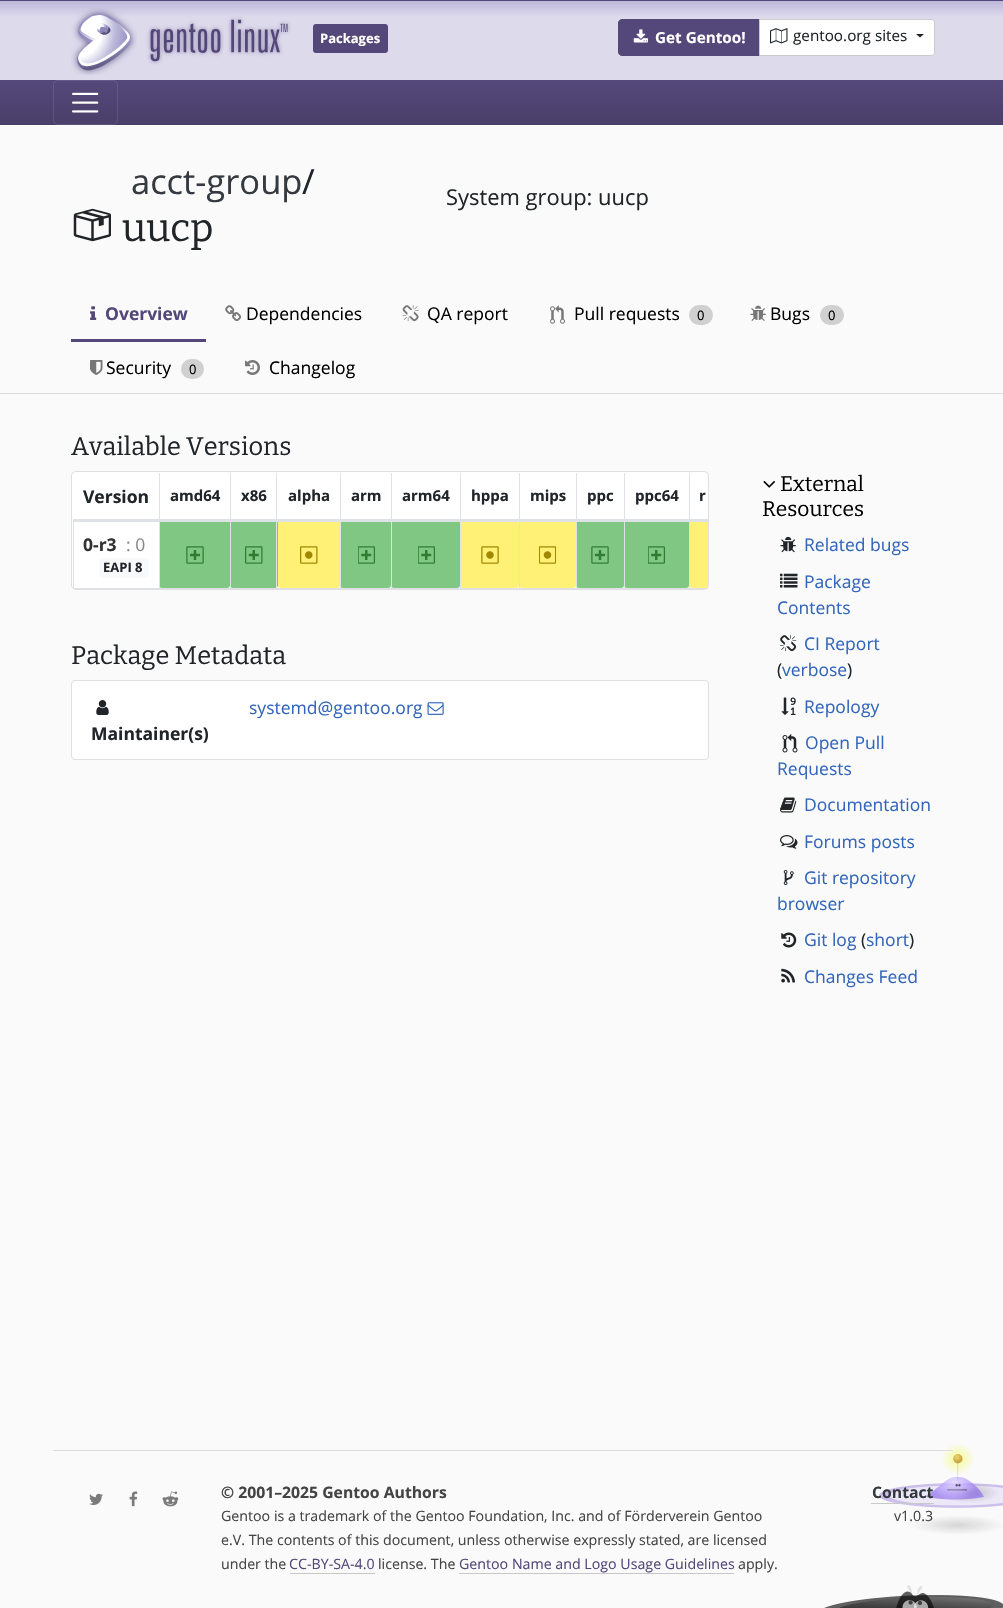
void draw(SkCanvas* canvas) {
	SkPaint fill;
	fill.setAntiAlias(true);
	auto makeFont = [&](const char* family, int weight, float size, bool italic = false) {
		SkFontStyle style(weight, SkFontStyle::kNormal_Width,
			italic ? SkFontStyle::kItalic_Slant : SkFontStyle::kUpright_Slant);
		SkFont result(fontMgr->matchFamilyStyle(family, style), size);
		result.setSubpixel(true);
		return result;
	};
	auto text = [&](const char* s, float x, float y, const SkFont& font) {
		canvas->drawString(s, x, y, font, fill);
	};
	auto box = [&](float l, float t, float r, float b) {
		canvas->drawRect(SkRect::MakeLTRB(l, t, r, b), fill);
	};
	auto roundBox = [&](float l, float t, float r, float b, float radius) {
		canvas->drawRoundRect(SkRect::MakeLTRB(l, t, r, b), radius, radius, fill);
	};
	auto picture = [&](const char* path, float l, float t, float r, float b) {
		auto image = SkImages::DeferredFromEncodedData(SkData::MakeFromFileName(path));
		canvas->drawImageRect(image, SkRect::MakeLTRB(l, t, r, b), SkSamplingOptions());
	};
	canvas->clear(0xFFFAFAFA);
	fill.setColor(0xFF54487A);
	box(0, 0, 1003, 1);
	{
		const SkColor colors[] = {0xFFBEB8DB, 0xFFDDDAEC};
		const float stops[] = {0, 0.2f};
		const SkPoint ends[] = {{502, 1.2f}, {502, 80}};
		fill.setShader(SkGradientShader::MakeLinear(ends, colors, stops, 2, SkTileMode::kClamp));
		fill.setAlpha(255);
	}
	box(0, 1, 1003, 80);
	picture("image0.png", 71, 8, 291, 75);
	fill.setShader(nullptr);
	fill.setColor(0xFF54487A);
	roundBox(313, 24, 388, 53, 3);
	canvas->drawPath(SkPathBuilder().moveTo(622, 19.5f).lineTo(759.5f, 19.5f).lineTo(759.5f, 55.5f).lineTo(622, 55.5f).cubicTo(620, 55.5f, 618.5f, 54, 618.5f, 52).lineTo(618.5f, 23).cubicTo(618.5f, 21, 620, 19.5f, 622, 19.5f).close().detach(), fill);
	fill.setStyle(SkPaint::kStroke_Style);
	fill.setStrokeWidth(1);
	canvas->drawPath(SkPathBuilder().moveTo(622, 19.5f).lineTo(759.5f, 19.5f).lineTo(759.5f, 55.5f).lineTo(622, 55.5f).cubicTo(620, 55.5f, 618.5f, 54, 618.5f, 52).lineTo(618.5f, 23).cubicTo(618.5f, 21, 620, 19.5f, 622, 19.5f).close().detach(), fill);
	picture("image1.png", 633, 29, 648, 43);
	fill.setStyle(SkPaint::kFill_Style);
	fill.setColor(0xFFFFFFFF);
	canvas->drawPath(SkPathBuilder().moveTo(759.5f, 19.5f).lineTo(931, 19.5f).cubicTo(933, 19.5f, 934.5f, 21, 934.5f, 23).lineTo(934.5f, 52).cubicTo(934.5f, 54, 933, 55.5f, 931, 55.5f).lineTo(759.5f, 55.5f).close().detach(), fill);
	fill.setStyle(SkPaint::kStroke_Style);
	fill.setColor(0xFFCCCCCC);
	canvas->drawPath(SkPathBuilder().moveTo(759.5f, 19.5f).lineTo(931, 19.5f).cubicTo(933, 19.5f, 934.5f, 21, 934.5f, 23).lineTo(934.5f, 52).cubicTo(934.5f, 54, 933, 55.5f, 931, 55.5f).lineTo(759.5f, 55.5f).close().detach(), fill);
	picture("image2.png", 770, 28, 788, 44);
	fill.setStyle(SkPaint::kFill_Style);
	fill.setColor(0xFF212529);
	canvas->drawPath(SkPathBuilder().moveTo(916, 34).lineTo(924, 34).lineTo(920, 37.5f).close().detach(), fill);
	{
		const SkColor colors[] = {0xFF54487A, 0xFF493F6A};
		const float stops[] = {0, 1};
		const SkPoint ends[] = {{502, 80}, {502, 125}};
		fill.setShader(SkGradientShader::MakeLinear(ends, colors, stops, 2, SkTileMode::kClamp));
		fill.setAlpha(255);
	}
	box(0, 80, 1003, 125);
	fill.setStyle(SkPaint::kStroke_Style);
	fill.setShader(nullptr);
	fill.setColor(0x1AFFFFFF);
	canvas->drawRoundRect(SkRect::MakeLTRB(53.5f, 80.5f, 117.5f, 124.5f), 4.5f, 4.5f, fill);
	picture("image3.png", 72, 92, 99, 113);
	picture("image4.png", 73, 208, 111, 242);
	fill.setStyle(SkPaint::kFill_Style);
	fill.setColor(0xFF54487A);
	box(71, 339, 206, 342);
	picture("image5.png", 90, 306, 97, 320);
	picture("image6.png", 225, 305, 242, 322);
	picture("image7.png", 402, 305, 419, 322);
	picture("image8.png", 550, 305, 565, 324);
	fill.setColor(0xFFD0D0D0);
	roundBox(689, 305, 713, 325, 10);
	picture("image9.png", 750, 305, 766, 321);
	roundBox(820, 305, 844, 325, 10);
	picture("image10.png", 90, 360, 103, 375);
	roundBox(181, 359, 204, 379, 10);
	picture("image11.png", 245, 360, 260, 375);
	fill.setColor(0xFFDDDDDD);
	box(0, 393, 1003, 394);
	fill.setColor(0xFFFFFFFF);
	canvas->drawRoundRect(SkRect::MakeLTRB(71.5f, 471.5f, 708.5f, 589.5f), 4.5f, 4.5f, fill);
	fill.setStyle(SkPaint::kStroke_Style);
	fill.setColor(0xFFDFDFDF);
	canvas->drawRoundRect(SkRect::MakeLTRB(71.5f, 471.5f, 708.5f, 589.5f), 4.5f, 4.5f, fill);
	fill.setStyle(SkPaint::kFill_Style);
	fill.setColor(0xFFDEE2E6);
	box(689, 588, 708, 589);
	fill.setColor(0xFFFFF176);
	canvas->drawPath(SkPathBuilder().moveTo(692, 520).lineTo(708, 520).lineTo(708, 588).lineTo(692, 588).cubicTo(690.5f, 588, 689, 586.5f, 689, 585).lineTo(689, 523).cubicTo(689, 521.5f, 690.5f, 520, 692, 520).close().detach(), fill);
	fill.setColor(0xFFDEE2E6);
	box(689, 473, 690, 589);
	box(624, 588, 690, 589);
	fill.setColor(0xFF81C784);
	roundBox(624, 520, 689, 588, 3);
	fill.setColor(0xFFDEE2E6);
	box(624, 473, 625, 589);
	box(576, 588, 625, 589);
	fill.setColor(0xFF81C784);
	roundBox(576, 520, 624, 588, 3);
	fill.setColor(0xFFDEE2E6);
	box(576, 473, 577, 589);
	box(519, 588, 578, 589);
	fill.setColor(0xFFFFF176);
	roundBox(519, 520, 576, 588, 3);
	fill.setColor(0xFFDEE2E6);
	box(519, 473, 520, 589);
	box(460, 588, 520, 589);
	fill.setColor(0xFFFFF176);
	roundBox(460, 520, 519, 588, 3);
	fill.setColor(0xFFDEE2E6);
	box(460, 473, 461, 589);
	box(391, 588, 461, 589);
	fill.setColor(0xFF81C784);
	roundBox(391, 520, 460, 588, 3);
	fill.setColor(0xFFDEE2E6);
	box(391, 473, 392, 589);
	box(340, 588, 393, 589);
	fill.setColor(0xFF81C784);
	roundBox(340, 520, 391, 588, 3);
	fill.setColor(0xFFDEE2E6);
	box(340, 473, 341, 589);
	box(276, 588, 341, 589);
	fill.setColor(0xFF81C784);
	roundBox(230, 520, 278, 588, 3);
	fill.setColor(0xFFDEE2E6);
	box(276, 473, 277, 589);
	box(230, 588, 278, 589);
	box(230, 473, 231, 589);
	box(159, 588, 231, 589);
	fill.setColor(0xFF81C784);
	roundBox(159, 520, 230, 588, 3);
	fill.setColor(0xFFDEE2E6);
	box(159, 473, 160, 589);
	box(73, 588, 160, 589);
	box(73, 520, 74, 589);
	fill.setColor(0xFFFFF176);
	roundBox(278, 520, 340, 588, 3);
	fill.setColor(0xFFDEE2E6);
	box(73, 519, 708, 522);
	fill.setColor(0xFFF8F9FA);
	roundBox(99, 558, 149, 578, 5);
	picture("image12.png", 186, 546, 204, 564);
	picture("image13.png", 245, 546, 263, 564);
	picture("image14.png", 300, 546, 318, 564);
	picture("image15.png", 358, 546, 375, 564);
	picture("image15.png", 418, 546, 435, 564);
	picture("image16.png", 481, 546, 499, 564);
	picture("image17.png", 539, 546, 556, 564);
	picture("image12.png", 591, 546, 609, 564);
	picture("image15.png", 648, 546, 665, 564);
	fill.setColor(0xFFFFFFFF);
	canvas->drawRoundRect(SkRect::MakeLTRB(71.5f, 680.5f, 708.5f, 759.5f), 3.5f, 3.5f, fill);
	fill.setStyle(SkPaint::kStroke_Style);
	fill.setColor(0xFFDFDFDF);
	canvas->drawRoundRect(SkRect::MakeLTRB(71.5f, 680.5f, 708.5f, 759.5f), 3.5f, 3.5f, fill);
	picture("image18.png", 427, 702, 444, 715);
	picture("image19.png", 96, 700, 109, 715);
	picture("image20.png", 763, 481, 775, 488);
	picture("image21.png", 780, 536, 796, 553);
	picture("image22.png", 780, 573, 798, 588);
	picture("image23.png", 780, 635, 797, 652);
	picture("image24.png", 781, 697, 796, 715);
	picture("image25.png", 782, 733, 798, 753);
	picture("image26.png", 780, 797, 797, 813);
	picture("image27.png", 780, 835, 798, 849);
	picture("image28.png", 783, 870, 794, 885);
	picture("image29.png", 781, 932, 797, 948);
	picture("image30.png", 781, 968, 795, 983);
	picture("image31.png", 879, 1444, 1003, 1534);
	picture("image32.png", 824, 1585, 1003, 1608);
	fill.setStyle(SkPaint::kFill_Style);
	fill.setColor(0xFFDDDDDD);
	box(53, 1450, 953, 1451);
	picture("image33.png", 89, 1493, 103, 1505);
	picture("image34.png", 129, 1491, 138, 1507);
	picture("image35.png", 162, 1491, 179, 1507);
	fill.setColor(0xFFC8C8C8);
	box(290, 1573, 375, 1574);
	box(459, 1573, 734, 1574);
	box(871, 1503, 934, 1504);
	auto font1 = makeFont("Open Sans", 700, 13);
	fill.setColor(0xFFFFFFFF);
	text("Packages", 320, 43, font1);
	auto font2 = makeFont("Open Sans", 700, 15.25f);
	text("Get Gentoo!", 655, 43, font2);
	auto font3 = makeFont("Open Sans", 400, 15.25f);
	fill.setColor(0xFF212529);
	text("gentoo.org sites", 793, 41, font3);
	auto font4 = makeFont("Open Sans", 400, 34.5f);
	fill.setColor(0xFF343A40);
	text("acct-group", 131, 194, font4);
	fill.setColor(0xFF212529);
	text("/", 302, 194, font4);
	auto font5 = makeFont("Bitter", 400, 39);
	text("uucp", 122, 241, font5);
	auto font6 = makeFont("Open Sans", 400, 21.9f);
	text("System group: uucp", 446, 205, font6);
	auto font7 = makeFont("Open Sans", 700, 17.5f);
	fill.setColor(0xFF54487A);
	text("Overview", 105, 320, font7);
	auto font8 = makeFont("Open Sans", 400, 17.5f);
	fill.setColor(0xFF000000);
	text("Dependencies", 246, 320, font8);
	text("QA report", 427, 320, font8);
	text("Pull requests", 574, 320, font8);
	auto font9 = makeFont("Open Sans", 400, 13);
	text("0", 697, 320, font9);
	text("Bugs", 770, 320, font8);
	text("0", 828, 320, font9);
	text("Security", 106, 374, font8);
	text("0", 189, 374, font9);
	text("Changelog", 269, 374, font8);
	auto font10 = makeFont("Bitter", 400, 25.4f);
	fill.setColor(0xFF212529);
	text("Available Versions", 71, 455, font10);
	text("Version", 83, 503, font7);
	auto font11 = makeFont("Open Sans", 700, 15);
	text("amd64", 170, 501, font11);
	text("x86", 241, 501, font11);
	text("alpha", 288, 501, font11);
	text("arm", 351, 501, font11);
	text("arm64", 402, 501, font11);
	text("hppa", 471, 501, font11);
	text("mips", 530, 501, font11);
	text("ppc", 587, 501, font11);
	text("ppc64", 635, 501, font11);
	text("r", 699, 501, font11);
	fill.setColor(0xFF333333);
	text("0-r3", 83, 551, font7);
	fill.setColor(0xFF888888);
	text(": 0", 126, 551, font8);
	fill.setColor(0xFF212529);
	text("EAPI 8", 103, 572, font1);
	text("Package Metadata", 71, 664, font10);
	fill.setColor(0xFF3366BB);
	text("systemd@gentoo.org", 249, 714, font8);
	fill.setColor(0xFF212529);
	text("Maintainer(s)", 91, 740, font7);
	auto font12 = makeFont("Bitter", 400, 21);
	fill.setColor(0xFF000000);
	text("External", 780, 491, font12);
	text("Resources", 762, 516, font12);
	fill.setColor(0xFF3366BB);
	text("Related bugs", 804, 551, font8);
	text("Package", 804, 588, font8);
	text("Contents", 777, 614, font8);
	text("CI Report", 804, 650, font8);
	fill.setColor(0xFF212529);
	text("(", 777, 676, font8);
	fill.setColor(0xFF3366BB);
	text("verbose", 782, 676, font8);
	fill.setColor(0xFF212529);
	text(")", 847, 676, font8);
	fill.setColor(0xFF3366BB);
	text("Repology", 804, 713, font8);
	text("Open Pull", 805, 749, font8);
	text("Requests", 777, 775, font8);
	text("Documentation", 804, 811, font8);
	text("Forums posts", 804, 848, font8);
	text("Git repository", 804, 884, font8);
	text("browser", 777, 910, font8);
	text("Git log", 804, 946, font8);
	fill.setColor(0xFF212529);
	text("(", 861, 946, font8);
	fill.setColor(0xFF3366BB);
	text("short", 866, 946, font8);
	fill.setColor(0xFF212529);
	text(")", 909, 946, font8);
	fill.setColor(0xFF3366BB);
	text("Changes Feed", 804, 983, font8);
	auto font13 = makeFont("Open Sans", 700, 15.75f);
	fill.setColor(0xFF444444);
	text("© 2001–2025 Gentoo Authors", 221, 1498, font13);
	auto font14 = makeFont("Open Sans", 400, 14.2f);
	text("Gentoo is a trademark of the Gentoo Foundation, Inc. and of Förderverein Gentoo", 221, 1521, font14);
	text("e.V. The contents of this document, unless otherwise expressly stated, are licensed", 221, 1545, font14);
	text("under the", 221, 1569, font14);
	fill.setColor(0xFF54487A);
	text("CC-BY-SA-4.0", 289, 1569, font14);
	fill.setColor(0xFF444444);
	text("license. The", 378, 1569, font14);
	fill.setColor(0xFF54487A);
	text("Gentoo Name and Logo Usage Guidelines", 459, 1569, font14);
	fill.setColor(0xFF444444);
	text("apply.", 738, 1569, font14);
	fill.setColor(0xFF343A40);
	text("Contact", 872, 1498, font13);
	fill.setColor(0xFF444444);
	text("v1.0.3", 894, 1521, font14);
}
